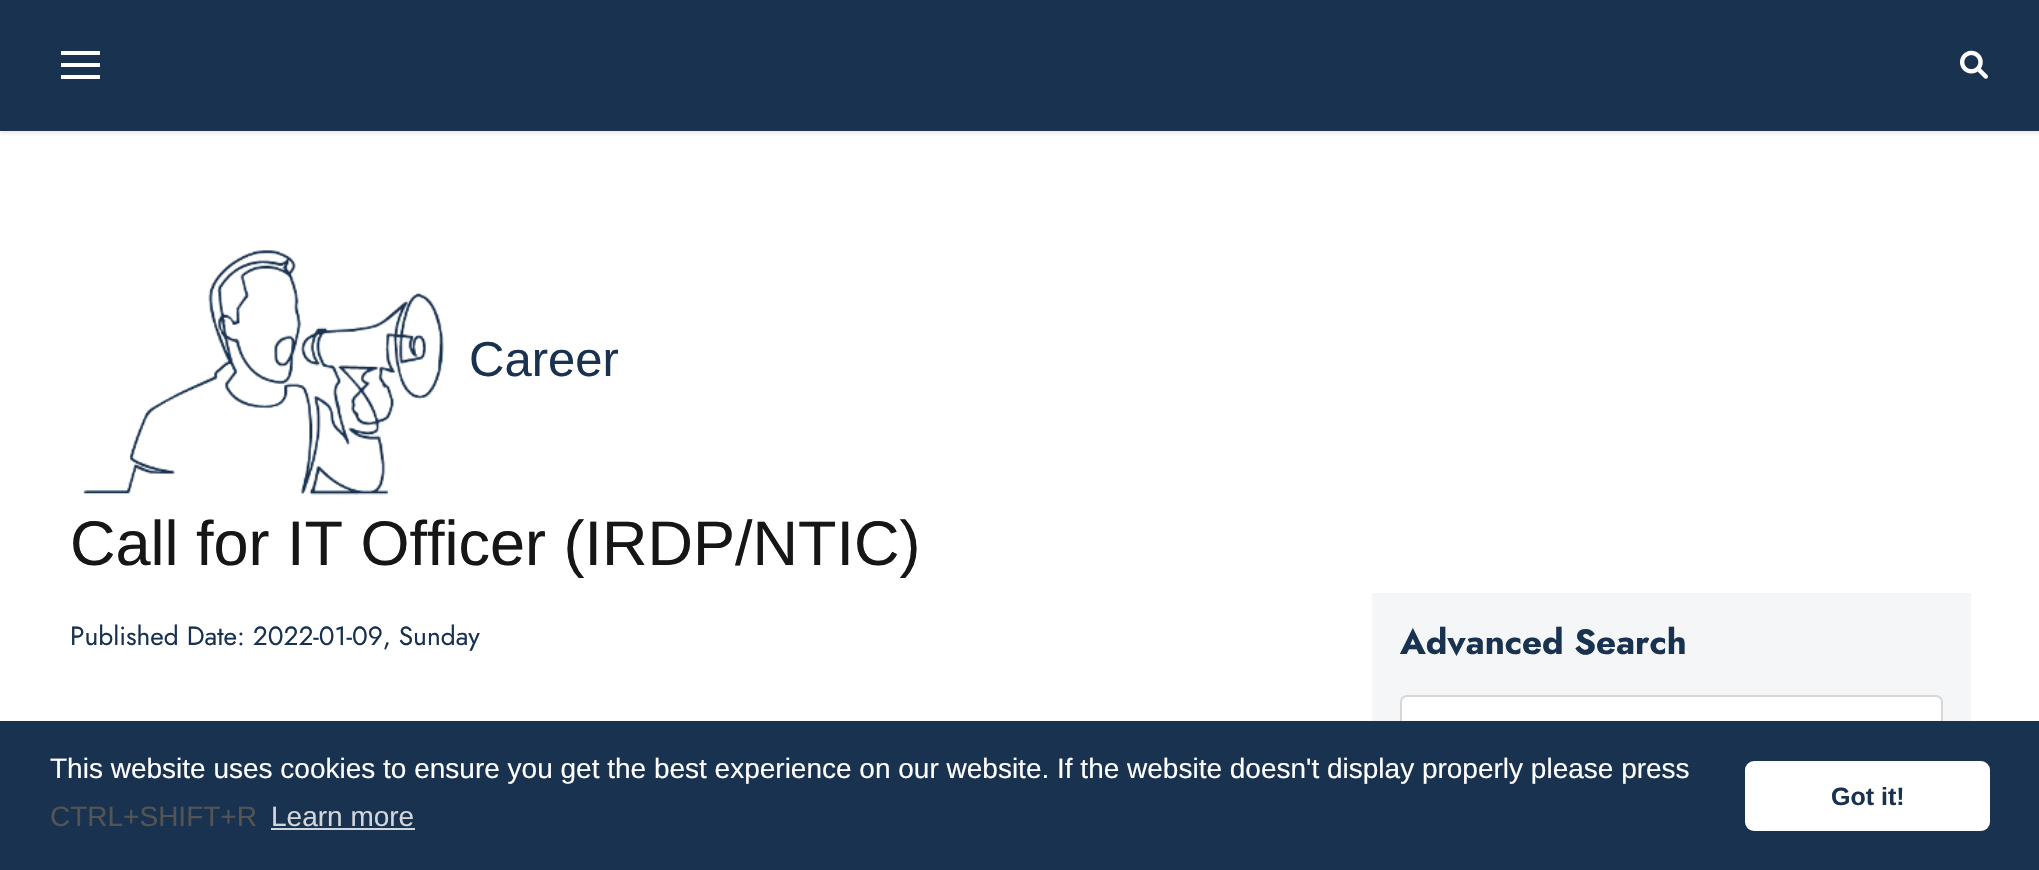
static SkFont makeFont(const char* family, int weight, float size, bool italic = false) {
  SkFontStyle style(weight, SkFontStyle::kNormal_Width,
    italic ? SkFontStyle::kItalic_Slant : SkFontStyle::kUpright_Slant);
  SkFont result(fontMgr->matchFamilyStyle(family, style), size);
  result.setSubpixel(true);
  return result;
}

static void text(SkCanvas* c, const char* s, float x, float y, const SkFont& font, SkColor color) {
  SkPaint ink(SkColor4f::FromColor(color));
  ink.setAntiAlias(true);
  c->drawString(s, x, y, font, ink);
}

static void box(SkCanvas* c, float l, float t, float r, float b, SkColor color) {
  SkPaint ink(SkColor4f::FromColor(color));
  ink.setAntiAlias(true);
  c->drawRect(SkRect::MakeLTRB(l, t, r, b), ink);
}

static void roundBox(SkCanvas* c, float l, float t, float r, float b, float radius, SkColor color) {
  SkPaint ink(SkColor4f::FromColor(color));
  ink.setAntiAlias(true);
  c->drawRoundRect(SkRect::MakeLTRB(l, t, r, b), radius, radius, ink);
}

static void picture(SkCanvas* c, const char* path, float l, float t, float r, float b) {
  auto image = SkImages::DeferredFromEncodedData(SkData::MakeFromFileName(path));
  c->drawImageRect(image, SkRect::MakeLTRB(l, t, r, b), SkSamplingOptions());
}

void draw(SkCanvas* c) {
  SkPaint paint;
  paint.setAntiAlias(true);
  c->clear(0xffffffff);
  paint.setColor(0x1a000000);
  paint.setMaskFilter(SkMaskFilter::MakeBlur(kNormal_SkBlurStyle, 2));
  c->drawRect(SkRect::MakeLTRB(0, 2, 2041, 133), paint);
  paint.setMaskFilter(nullptr);
  box(c, 0, 0, 2039, 131, 0xff193250);
  box(c, 61, 51, 100, 55, 0xffffffff);
  box(c, 61, 63, 100, 67, 0xffffffff);
  box(c, 61, 75, 100, 79, 0xffffffff);
  picture(c, "img_01.png", 1960, 50, 1988, 79);
  picture(c, "img_02.png", 83, 250, 444, 495);
  SkFont face1 = makeFont("Liberation Sans", 400, 49);
  text(c, "Career", 469, 376, face1, 0xff193250);
  SkFont face2 = makeFont("Liberation Sans", 400, 63);
  text(c, "Call for IT Officer (IRDP/NTIC)", 70, 565, face2, 0xff161616);
  SkFont face3 = makeFont("Jost", 400, 26.25f);
  text(c, "Published Date: 2022-01-09, Sunday", 70, 645, face3, 0xff193250);
  box(c, 1372, 593, 1971, 721, 0xfff4f6f7);
  SkFont face4 = makeFont("Jost", 700, 35);
  text(c, "Advanced Search", 1400, 654, face4, 0xff193250);
  paint.setColor(0xffffffff);
  c->drawRoundRect(SkRect::MakeLTRB(1401, 696, 1942, 760), 6, 6, paint);
  paint.setStyle(SkPaint::kStroke_Style);
  paint.setStrokeWidth(2);
  paint.setColor(0xffd7d7d7);
  c->drawRoundRect(SkRect::MakeLTRB(1401, 696, 1942, 760), 6, 6, paint);
  box(c, 0, 721, 2039, 870, 0xff193250);
  SkFont face5 = makeFont("Liberation Sans", 400, 28);
  text(c, "This website uses cookies to ensure you get the best experience on our website. If the website doesn't display properly please press", 50, 778, face5, 0xffffffff);
  text(c, "CTRL+SHIFT+R", 50, 826, face5, 0xff545454);
  text(c, "Learn more", 271, 826, face5, 0xffd1d6dc);
  box(c, 271, 828, 415, 830, 0xffd1d6dc);
  roundBox(c, 1745, 761, 1990, 831, 9, 0xffffffff);
  SkFont face6 = makeFont("Liberation Sans", 700, 25);
  text(c, "Got it!", 1831, 805, face6, 0xff193250);
}
